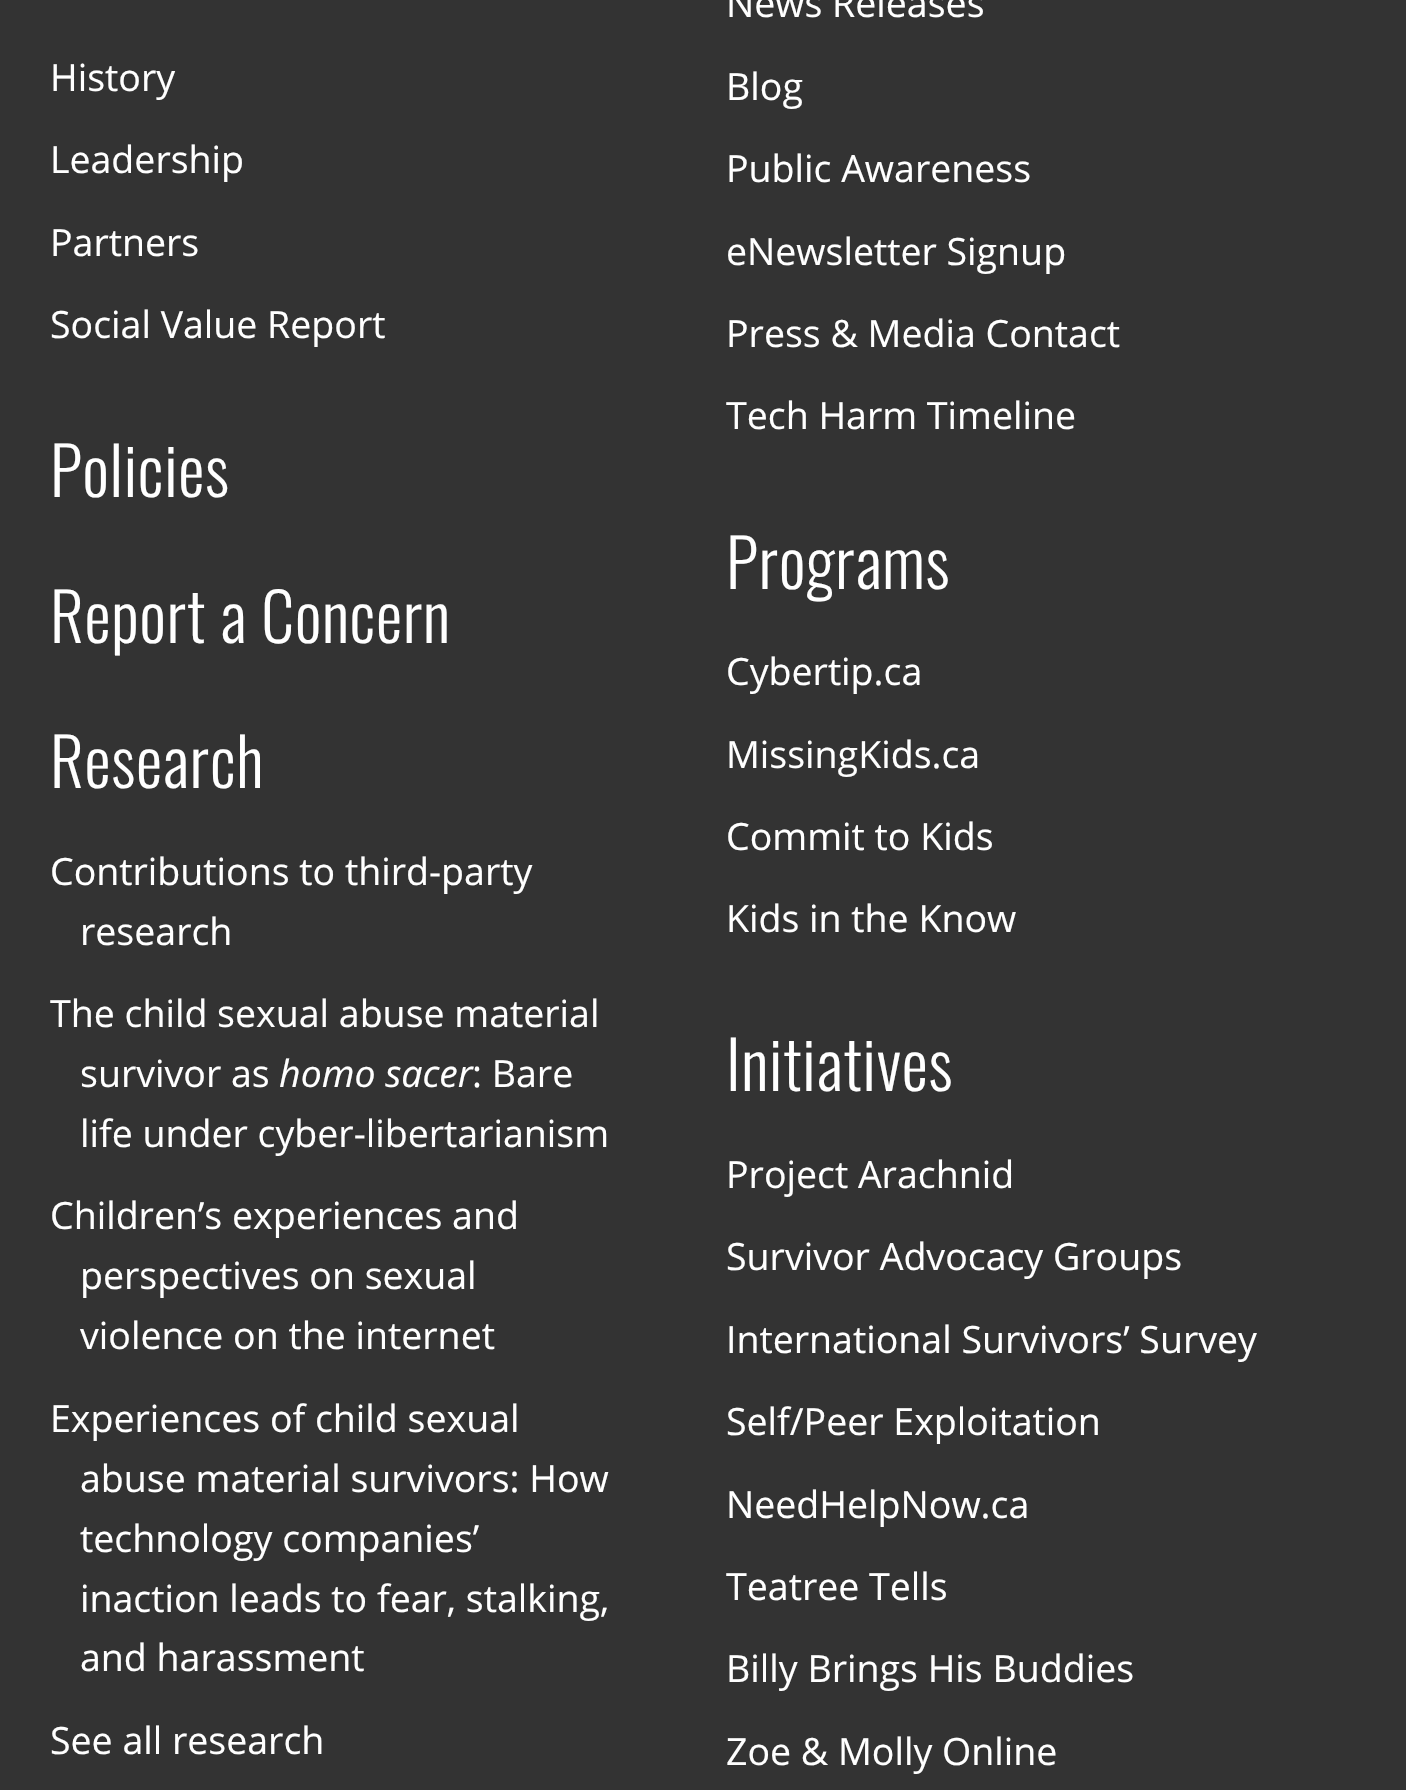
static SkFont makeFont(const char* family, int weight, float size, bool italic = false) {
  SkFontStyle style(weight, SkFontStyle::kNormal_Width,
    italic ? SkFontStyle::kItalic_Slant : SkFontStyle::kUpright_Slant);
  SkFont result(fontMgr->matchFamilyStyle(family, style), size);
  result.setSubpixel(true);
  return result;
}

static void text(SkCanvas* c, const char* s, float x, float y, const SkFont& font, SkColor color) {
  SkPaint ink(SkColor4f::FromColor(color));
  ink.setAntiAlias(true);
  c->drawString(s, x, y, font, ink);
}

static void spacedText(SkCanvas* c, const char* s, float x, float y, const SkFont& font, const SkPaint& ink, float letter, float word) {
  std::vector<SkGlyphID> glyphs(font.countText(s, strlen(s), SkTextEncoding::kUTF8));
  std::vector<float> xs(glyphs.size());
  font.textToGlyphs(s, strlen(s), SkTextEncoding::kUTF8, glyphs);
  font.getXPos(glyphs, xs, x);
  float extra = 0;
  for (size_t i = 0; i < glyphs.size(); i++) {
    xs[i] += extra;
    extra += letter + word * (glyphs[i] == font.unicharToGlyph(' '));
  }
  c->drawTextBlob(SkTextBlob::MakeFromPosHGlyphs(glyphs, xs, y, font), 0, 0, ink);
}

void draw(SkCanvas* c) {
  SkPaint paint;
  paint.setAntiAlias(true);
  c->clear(0xff333333);
  SkFont face1 = makeFont("Open Sans", 400, 37.5f);
  text(c, "History", 50, 91, face1, 0xffffffff);
  text(c, "Leadership", 50, 173, face1, 0xffffffff);
  text(c, "Partners", 50, 256, face1, 0xffffffff);
  text(c, "Social Value Report", 50, 338, face1, 0xffffffff);
  text(c, "News Releases", 726, 17, face1, 0xffffffff);
  text(c, "Blog", 726, 100, face1, 0xffffffff);
  text(c, "Public Awareness", 726, 182, face1, 0xffffffff);
  text(c, "eNewsletter Signup", 726, 265, face1, 0xffffffff);
  text(c, "Press & Media Contact", 726, 347, face1, 0xffffffff);
  text(c, "Tech Harm Timeline", 726, 429, face1, 0xffffffff);
  SkFont face2 = makeFont("Oswald", 300, 66);
  paint.setColor(0xffffffff);
  spacedText(c, "Policies", 50, 497, face2, paint, 0.7f, 0);
  spacedText(c, "Report a Concern", 50, 643, face2, paint, 0.7f, 0);
  spacedText(c, "Programs", 726, 589, face2, paint, 0.7f, 0);
  text(c, "Cybertip.ca", 726, 685, face1, 0xffffffff);
  text(c, "MissingKids.ca", 726, 768, face1, 0xffffffff);
  text(c, "Commit to Kids", 726, 850, face1, 0xffffffff);
  text(c, "Kids in the Know", 726, 932, face1, 0xffffffff);
  spacedText(c, "Research", 50, 788, face2, paint, 0.7f, 0);
  text(c, "Contributions to third-party", 50, 885, face1, 0xffffffff);
  text(c, "research", 80, 945, face1, 0xffffffff);
  text(c, "The child sexual abuse material", 50, 1027, face1, 0xffffffff);
  text(c, "survivor as", 80, 1087, face1, 0xffffffff);
  SkFont face3 = makeFont("Open Sans", 400, 37.5f, true);
  text(c, "homo sacer", 279, 1087, face3, 0xffffffff);
  text(c, ": Bare", 472, 1087, face1, 0xffffffff);
  text(c, "life under cyber-libertarianism", 80, 1147, face1, 0xffffffff);
  text(c, "Children’s experiences and", 50, 1229, face1, 0xffffffff);
  text(c, "perspectives on sexual", 80, 1289, face1, 0xffffffff);
  text(c, "violence on the internet", 80, 1349, face1, 0xffffffff);
  text(c, "Experiences of child sexual", 50, 1432, face1, 0xffffffff);
  text(c, "abuse material survivors: How", 80, 1492, face1, 0xffffffff);
  text(c, "technology companies’", 80, 1552, face1, 0xffffffff);
  text(c, "inaction leads to fear, stalking,", 80, 1612, face1, 0xffffffff);
  text(c, "and harassment", 80, 1671, face1, 0xffffffff);
  text(c, "See all research", 50, 1754, face1, 0xffffffff);
  spacedText(c, "Initiatives", 726, 1091, face2, paint, 0.7f, 0);
  text(c, "Project Arachnid", 726, 1188, face1, 0xffffffff);
  text(c, "Survivor Advocacy Groups", 726, 1270, face1, 0xffffffff);
  text(c, "International Survivors’ Survey", 726, 1353, face1, 0xffffffff);
  text(c, "Self/Peer Exploitation", 726, 1435, face1, 0xffffffff);
  text(c, "NeedHelpNow.ca", 726, 1518, face1, 0xffffffff);
  text(c, "Teatree Tells", 726, 1600, face1, 0xffffffff);
  text(c, "Billy Brings His Buddies", 726, 1682, face1, 0xffffffff);
  text(c, "Zoe & Molly Online", 726, 1765, face1, 0xffffffff);
}
